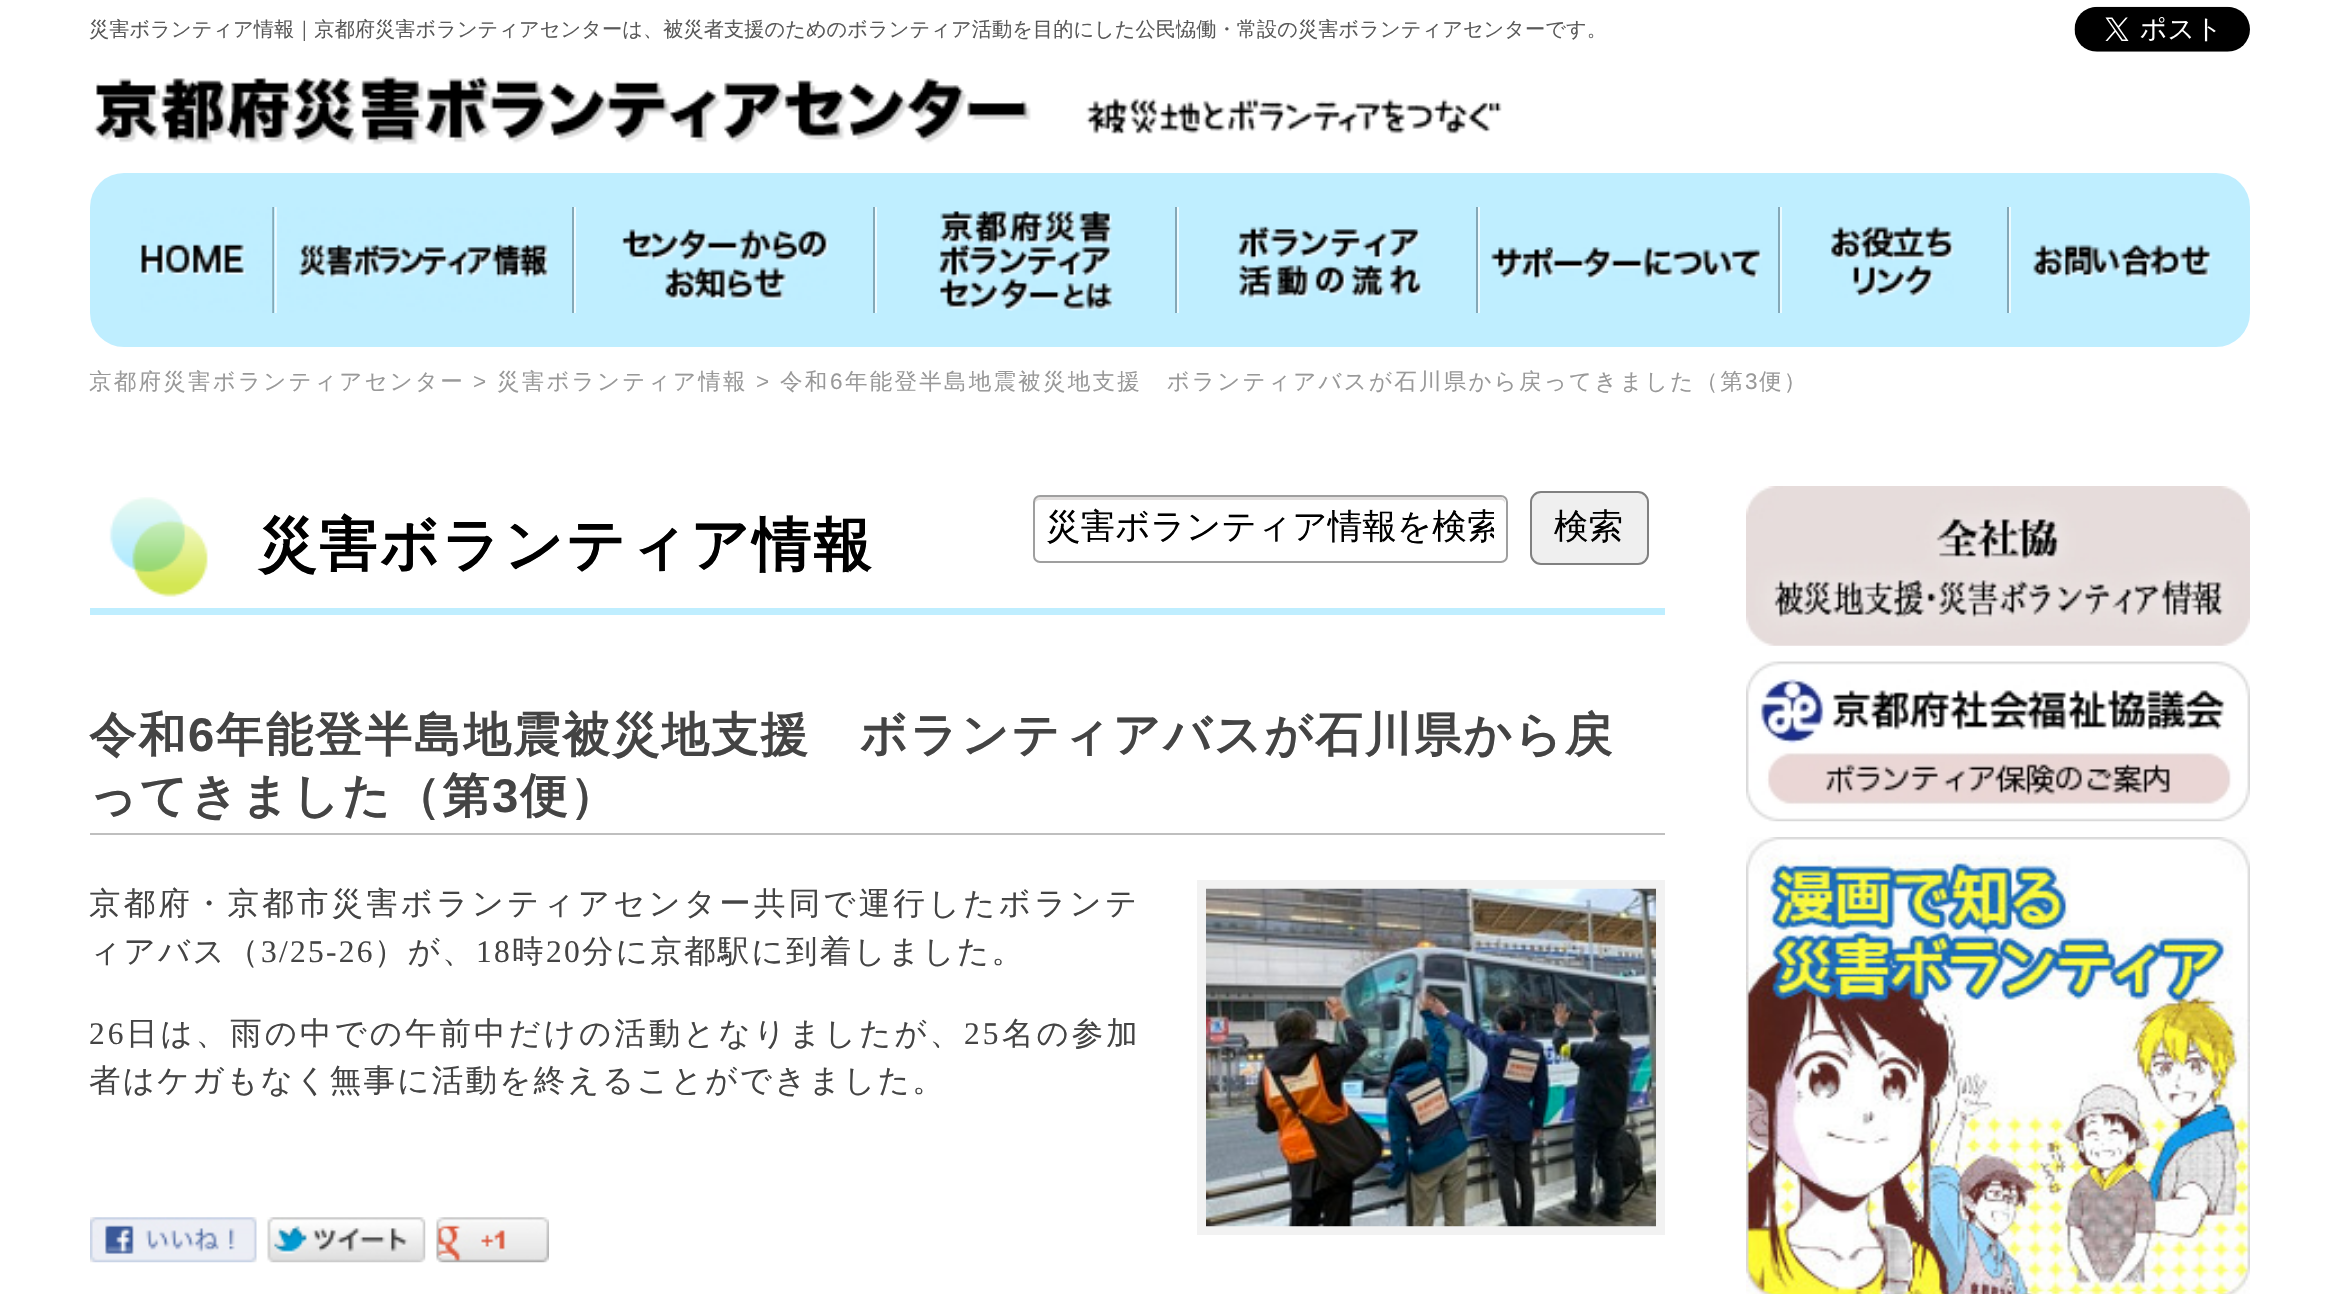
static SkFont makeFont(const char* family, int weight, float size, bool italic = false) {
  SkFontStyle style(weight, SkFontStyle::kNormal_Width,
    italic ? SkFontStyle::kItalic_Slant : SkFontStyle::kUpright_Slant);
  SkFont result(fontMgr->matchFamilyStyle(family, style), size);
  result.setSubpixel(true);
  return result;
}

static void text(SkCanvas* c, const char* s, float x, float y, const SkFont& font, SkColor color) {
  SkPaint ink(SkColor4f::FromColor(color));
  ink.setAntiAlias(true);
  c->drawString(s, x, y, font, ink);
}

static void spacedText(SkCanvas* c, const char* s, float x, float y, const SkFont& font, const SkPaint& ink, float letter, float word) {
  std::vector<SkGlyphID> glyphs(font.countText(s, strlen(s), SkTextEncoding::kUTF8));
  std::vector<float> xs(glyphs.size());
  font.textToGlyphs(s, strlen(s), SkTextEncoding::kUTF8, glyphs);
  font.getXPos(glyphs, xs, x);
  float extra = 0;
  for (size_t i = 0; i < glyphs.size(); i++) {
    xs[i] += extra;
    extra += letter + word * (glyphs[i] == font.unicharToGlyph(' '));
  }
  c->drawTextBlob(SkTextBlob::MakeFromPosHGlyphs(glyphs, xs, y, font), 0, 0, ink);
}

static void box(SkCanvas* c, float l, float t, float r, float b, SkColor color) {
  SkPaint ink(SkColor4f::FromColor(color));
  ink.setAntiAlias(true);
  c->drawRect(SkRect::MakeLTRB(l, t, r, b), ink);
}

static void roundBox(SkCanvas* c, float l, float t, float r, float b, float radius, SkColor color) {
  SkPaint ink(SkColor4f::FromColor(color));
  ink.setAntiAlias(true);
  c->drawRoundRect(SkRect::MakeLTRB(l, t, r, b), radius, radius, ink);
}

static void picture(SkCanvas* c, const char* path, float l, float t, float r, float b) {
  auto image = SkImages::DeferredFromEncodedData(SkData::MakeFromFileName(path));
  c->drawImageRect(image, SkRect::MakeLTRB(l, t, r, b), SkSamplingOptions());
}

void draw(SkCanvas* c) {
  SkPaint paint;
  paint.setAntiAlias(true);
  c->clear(0xffffffff);
  SkFont face1 = makeFont("WenQuanYi Zen Hei", 500, 20.25f);
  text(c, "災害ボランティア情報｜京都府災害ボランティアセンターは、被災者支援のためのボランティア活動を目的にした公民恊働・常設の災害ボランティアセンターです。", 89, 36, face1, 0xff595959);
  picture(c, "img_01.png", 2074, 6, 2250, 52);
  picture(c, "img_02.png", 94, 76, 1502, 145);
  roundBox(c, 90, 173, 2250, 347, 34, 0xffbfeeff);
  box(c, 272, 207, 274, 313, 0xff84a8b7);
  picture(c, "img_03.png", 141, 207, 273, 313);
  box(c, 572, 207, 574, 313, 0xff84a8b7);
  box(c, 275, 207, 277, 313, 0xffecfaff);
  picture(c, "img_04.png", 276, 207, 550, 313);
  box(c, 873, 207, 875, 313, 0xff84a8b7);
  box(c, 574, 207, 576, 313, 0xffecfaff);
  picture(c, "img_05.png", 622, 229, 829, 300);
  box(c, 1175, 207, 1177, 313, 0xff84a8b7);
  box(c, 875, 207, 877, 313, 0xffecfaff);
  picture(c, "img_06.png", 937, 211, 1114, 311);
  box(c, 1476, 207, 1478, 313, 0xff84a8b7);
  box(c, 1177, 207, 1179, 313, 0xffecfaff);
  picture(c, "img_07.png", 1237, 226, 1423, 300);
  box(c, 1778, 207, 1780, 313, 0xff84a8b7);
  box(c, 1478, 207, 1480, 313, 0xffecfaff);
  picture(c, "img_08.png", 1491, 247, 1763, 281);
  box(c, 2007, 207, 2009, 313, 0xff84a8b7);
  box(c, 1780, 207, 1782, 313, 0xffecfaff);
  picture(c, "img_09.png", 1831, 226, 1954, 298);
  box(c, 2009, 207, 2011, 313, 0xffecfaff);
  picture(c, "img_10.png", 2033, 244, 2213, 280);
  SkFont face2 = makeFont("WenQuanYi Zen Hei", 500, 22.5f);
  paint.setColor(0xff999999);
  spacedText(c, "京都府災害ボランティアセンター", 89, 389, face2, paint, 2.25f, 0);
  SkFont face3 = makeFont("Liberation Sans", 400, 22.5f);
  spacedText(c, ">", 473, 389, face3, paint, 2.25f, 0);
  spacedText(c, "災害ボランティア情報", 497, 389, face2, paint, 2.25f, 0);
  spacedText(c, ">", 756, 389, face3, paint, 2.25f, 0);
  spacedText(c, "令和", 780, 389, face2, paint, 2.25f, 0);
  spacedText(c, "6", 830, 389, face3, paint, 2.25f, 0);
  spacedText(c, "年能登半島地震被災地支援　ボランティアバスが石川県から戻ってきました（第", 845, 389, face2, paint, 2.25f, 0);
  spacedText(c, "3", 1745, 389, face3, paint, 2.25f, 0);
  spacedText(c, "便）", 1759, 389, face2, paint, 2.25f, 0);
  picture(c, "img_11.png", 109, 497, 208, 597);
  box(c, 90, 608, 1665, 615, 0xffbfeeff);
  SkFont face4 = makeFont("WenQuanYi Zen Hei", 700, 58.5f);
  paint.setColor(0xff000000);
  spacedText(c, "災害ボランティア情報", 258, 565, face4, paint, 2.25f, 0);
  paint.setColor(0xffe2dfde);
  c->drawPath(SkPathBuilder().moveTo(1040, 500).lineTo(1501, 500).cubicTo(1503, 500, 1505, 502, 1505, 504).lineTo(1505, 502).cubicTo(1505, 499, 1503, 497, 1500, 497).lineTo(1040, 497).cubicTo(1037, 497, 1035, 499, 1035, 502).lineTo(1035, 504).cubicTo(1035, 502, 1037, 500, 1040, 500).close().detach(), paint);
  paint.setStyle(SkPaint::kStroke_Style);
  paint.setStrokeWidth(2);
  paint.setColor(0xff9f9f9f);
  c->drawRoundRect(SkRect::MakeLTRB(1034, 496, 1507, 562), 6, 6, paint);
  c->save();
  c->clipRect(SkRect::MakeLTRB(1046, 504, 1494, 551));
  SkFont face5 = makeFont("WenQuanYi Zen Hei", 500, 34.6f);
  text(c, "災害ボランティア情報を検索", 1046, 538, face5, 0xff000000);
  c->restore();
  paint.setStyle(SkPaint::kFill_Style);
  paint.setColor(0xffefefef);
  c->drawRoundRect(SkRect::MakeLTRB(1531, 492, 1648, 564), 10, 10, paint);
  paint.setStyle(SkPaint::kStroke_Style);
  paint.setColor(0xff808080);
  c->drawRoundRect(SkRect::MakeLTRB(1531, 492, 1648, 564), 10, 10, paint);
  text(c, "検索", 1554, 538, face5, 0xff000000);
  box(c, 90, 833, 1665, 835, 0xffbfbfbf);
  SkFont face6 = makeFont("WenQuanYi Zen Hei", 700, 47.25f);
  paint.setStyle(SkPaint::kFill_Style);
  paint.setColor(0xff444444);
  spacedText(c, "令和", 89, 751, face6, paint, 2.25f, 0);
  SkFont face7 = makeFont("Liberation Sans", 700, 47.25f);
  spacedText(c, "6", 188, 751, face7, paint, 2.25f, 0);
  spacedText(c, "年能登半島地震被災地支援　ボランティアバスが石川県から戻", 216, 751, face6, paint, 2.25f, 0);
  spacedText(c, "ってきました（第", 89, 812, face6, paint, 2.25f, 0);
  spacedText(c, "3", 492, 812, face7, paint, 2.25f, 0);
  spacedText(c, "便）", 520, 812, face6, paint, 2.25f, 0);
  SkFont face8 = makeFont("WenQuanYi Zen Hei", 500, 31.5f);
  spacedText(c, "京都府・京都市災害ボランティアセンター共同で運行したボランテ", 89, 914, face8, paint, 3.15f, 0);
  spacedText(c, "ィアバス（", 89, 962, face8, paint, 2.25f, 0);
  SkFont face9 = makeFont("Liberation Serif", 400, 31.5f);
  spacedText(c, "3/25-26", 261, 962, face9, paint, 2.25f, 0);
  spacedText(c, "）が、", 374, 962, face8, paint, 2.25f, 0);
  spacedText(c, "18", 476, 962, face9, paint, 2.25f, 0);
  spacedText(c, "時", 512, 962, face8, paint, 2.25f, 0);
  spacedText(c, "20", 546, 962, face9, paint, 2.25f, 0);
  spacedText(c, "分に京都駅に到着しました。", 582, 962, face8, paint, 2.25f, 0);
  spacedText(c, "26", 89, 1044, face9, paint, 3, 0);
  spacedText(c, "日は、雨の中での午前中だけの活動となりましたが、", 126, 1044, face8, paint, 3, 0);
  spacedText(c, "25", 964, 1044, face9, paint, 3, 0);
  spacedText(c, "名の参加", 1002, 1044, face8, paint, 3, 0);
  spacedText(c, "者はケガもなく無事に活動を終えることができました。", 89, 1091, face8, paint, 2.25f, 0);
  picture(c, "img_12.png", 90, 1217, 257, 1263);
  picture(c, "img_13.png", 266, 1217, 426, 1263);
  picture(c, "img_14.png", 436, 1217, 549, 1263);
  paint.setStyle(SkPaint::kStroke_Style);
  paint.setStrokeWidth(9);
  paint.setColor(0xfff2f2f2);
  c->drawRect(SkRect::MakeLTRB(1201.5f, 884.5f, 1660.5f, 1230.5f), paint);
  picture(c, "img_15.png", 1206, 888, 1656, 1227);
  picture(c, "img_16.png", 1746, 486, 2250, 646);
  picture(c, "img_17.png", 1746, 661, 2250, 822);
  picture(c, "img_18.png", 1746, 837, 2250, 1294);
}
